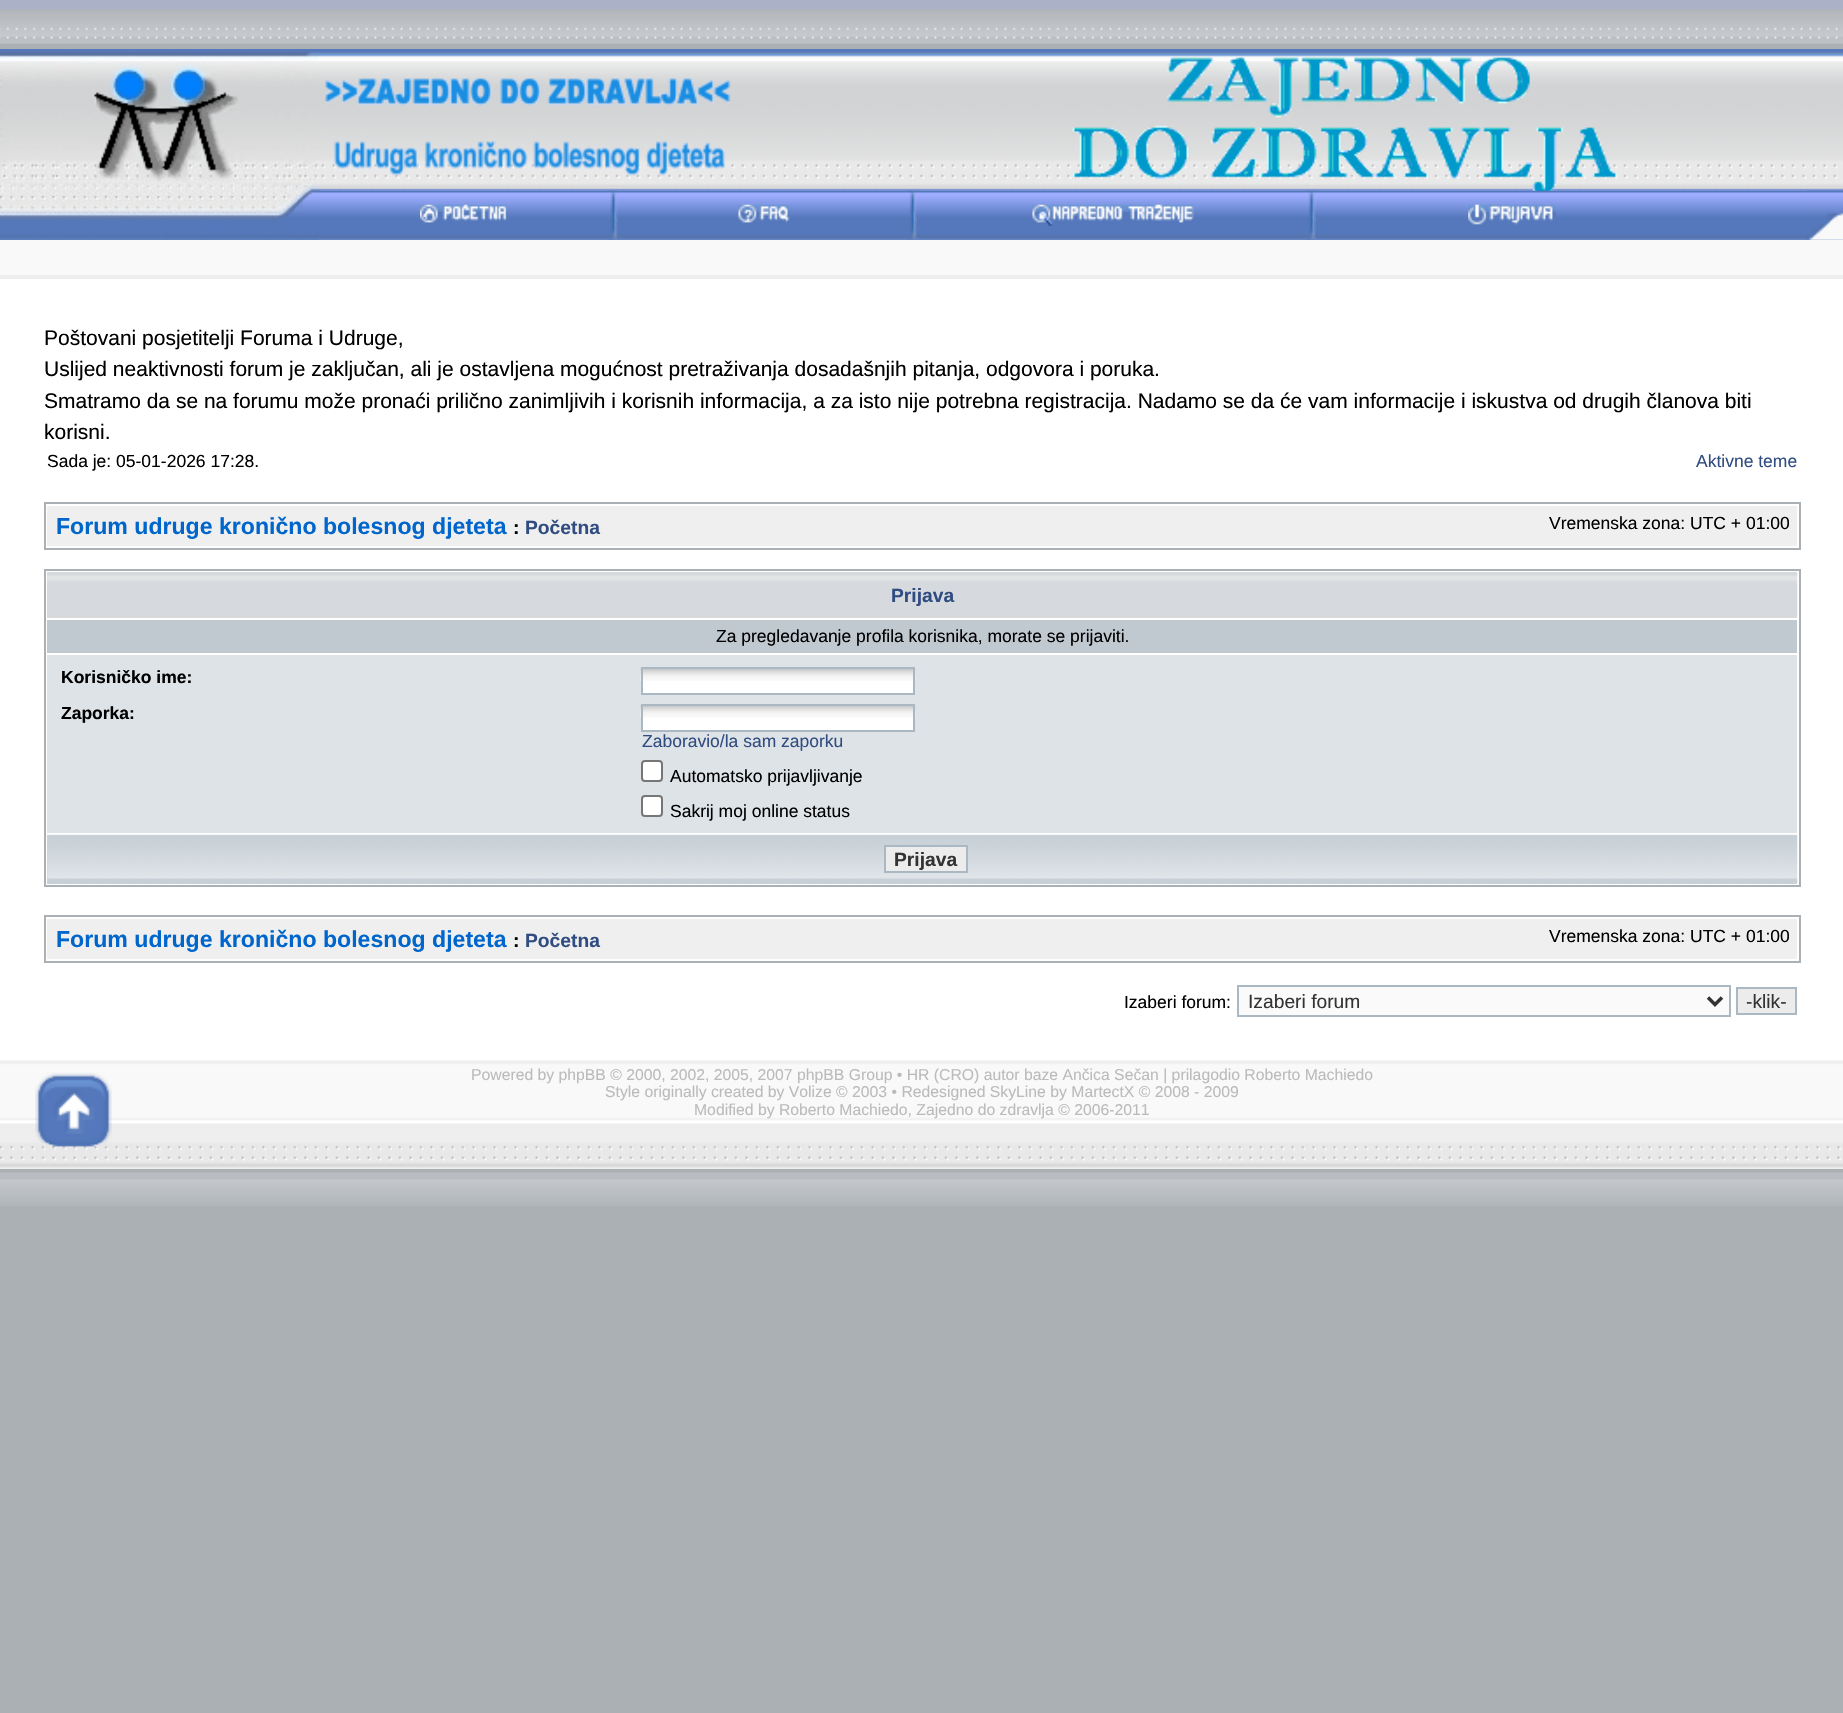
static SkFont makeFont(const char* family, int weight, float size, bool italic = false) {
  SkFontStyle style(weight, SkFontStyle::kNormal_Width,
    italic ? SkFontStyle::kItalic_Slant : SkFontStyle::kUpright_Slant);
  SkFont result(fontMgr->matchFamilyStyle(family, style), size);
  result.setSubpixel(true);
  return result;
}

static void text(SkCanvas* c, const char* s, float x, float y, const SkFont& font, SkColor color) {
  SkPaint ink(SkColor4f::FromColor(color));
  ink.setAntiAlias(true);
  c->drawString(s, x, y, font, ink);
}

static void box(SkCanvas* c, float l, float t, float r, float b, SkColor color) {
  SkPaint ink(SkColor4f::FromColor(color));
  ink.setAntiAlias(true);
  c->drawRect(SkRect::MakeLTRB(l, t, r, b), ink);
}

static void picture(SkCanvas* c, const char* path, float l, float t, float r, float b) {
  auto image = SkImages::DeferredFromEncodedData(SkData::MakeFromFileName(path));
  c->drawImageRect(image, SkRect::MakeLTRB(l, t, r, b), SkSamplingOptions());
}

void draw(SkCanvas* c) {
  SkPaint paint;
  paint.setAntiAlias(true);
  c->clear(0xffabb0b5);
  box(c, 0, 239, 1843, 1061, 0xffffffff);
  picture(c, "img_01.png", 0, 9, 1843, 49);
  box(c, 0, 0, 1843, 9, 0xffabb1c6);
  picture(c, "img_02.png", 0, 49, 1843, 240);
  picture(c, "img_05.png", 1072, 57, 1618, 191);
  picture(c, "img_06.png", 0, 190, 1843, 240);
  picture(c, "img_03.png", 0, 50, 319, 240);
  picture(c, "img_04.png", 325, 78, 731, 176);
  picture(c, "img_07.png", 420, 204, 508, 223);
  picture(c, "img_08.png", 609, 190, 618, 240);
  picture(c, "img_09.png", 738, 204, 790, 223);
  picture(c, "img_10.png", 908, 190, 917, 240);
  picture(c, "img_11.png", 1032, 204, 1194, 226);
  picture(c, "img_10.png", 1307, 190, 1316, 240);
  picture(c, "img_12.png", 1468, 204, 1556, 225);
  picture(c, "img_13.png", 1806, 190, 1843, 240);
  box(c, 0, 240, 1843, 275, 0xfff9f9f9);
  box(c, 0, 275, 1843, 279, 0xffeeeeee);
  SkFont face1 = makeFont("Liberation Sans", 400, 21);
  text(c, "Poštovani posjetitelji Foruma i Udruge,", 44, 345, face1, 0xff000000);
  text(c, "Uslijed neaktivnosti forum je zaključan, ali je ostavljena mogućnost pretraživanja dosadašnjih pitanja, odgovora i poruka.", 44, 376, face1, 0xff000000);
  text(c, "Smatramo da se na forumu može pronaći prilično zanimljivih i korisnih informacija, a za isto nije potrebna registracija. Nadamo se da će vam informacije i iskustva od drugih članova biti", 44, 408, face1, 0xff000000);
  text(c, "korisni.", 44, 439, face1, 0xff000000);
  SkFont face2 = makeFont("Liberation Sans", 400, 17.5f);
  text(c, "Sada je: 05-01-2026 17:28.", 47, 467, face2, 0xff000000);
  text(c, "Aktivne teme", 1696, 467, face2, 0xff304c80);
  paint.setStyle(SkPaint::kStroke_Style);
  paint.setStrokeWidth(2);
  paint.setColor(0xffabb0b5);
  c->drawRect(SkRect::MakeLTRB(45, 503, 1800, 549), paint);
  box(c, 47, 506, 1797, 546, 0xffefefef);
  SkFont face3 = makeFont("Liberation Sans", 700, 23.1f);
  text(c, "Forum udruge kronično bolesnog djeteta", 56, 534, face3, 0xff0066cc);
  SkFont face4 = makeFont("Liberation Sans", 700, 19.25f);
  text(c, ":", 513, 534, face4, 0xff000000);
  text(c, "Početna", 525, 534, face4, 0xff304c80);
  text(c, "Vremenska zona: UTC + 01:00", 1549, 529, face2, 0xff000000);
  c->drawRect(SkRect::MakeLTRB(45, 570, 1800, 886), paint);
  box(c, 47, 572, 1797, 618, 0xffd6d9de);
  picture(c, "img_14.png", 47, 572, 1798, 618);
  text(c, "Prijava", 891, 602, face4, 0xff304c80);
  box(c, 47, 620, 1797, 653, 0xffc0c8d0);
  text(c, "Za pregledavanje profila korisnika, morate se prijaviti.", 716, 642, face2, 0xff000000);
  box(c, 47, 655, 1797, 833, 0xffdee3e7);
  SkFont face5 = makeFont("Liberation Sans", 700, 17.5f);
  text(c, "Korisničko ime:", 61, 683, face5, 0xff000000);
  box(c, 643, 680, 913, 693, 0xffffffff);
  picture(c, "img_15.png", 640, 668, 916, 681);
  paint.setColor(0xffa9b8c2);
  c->drawRect(SkRect::MakeLTRB(642, 668, 914, 694), paint);
  text(c, "Zaporka:", 61, 719, face5, 0xff000000);
  box(c, 643, 717, 913, 730, 0xffffffff);
  picture(c, "img_16.png", 640, 705, 916, 718);
  c->drawRect(SkRect::MakeLTRB(642, 705, 914, 731), paint);
  text(c, "Zaboravio/la sam zaporku", 642, 747, face2, 0xff304c80);
  paint.setStyle(SkPaint::kFill_Style);
  paint.setColor(0xffffffff);
  c->drawRoundRect(SkRect::MakeLTRB(642, 761, 662, 781), 3, 3, paint);
  paint.setStyle(SkPaint::kStroke_Style);
  paint.setColor(0xff767676);
  c->drawRoundRect(SkRect::MakeLTRB(642, 761, 662, 781), 3, 3, paint);
  text(c, "Automatsko prijavljivanje", 670, 782, face2, 0xff000000);
  paint.setStyle(SkPaint::kFill_Style);
  paint.setColor(0xffffffff);
  c->drawRoundRect(SkRect::MakeLTRB(642, 796, 662, 816), 3, 3, paint);
  paint.setStyle(SkPaint::kStroke_Style);
  paint.setColor(0xff767676);
  c->drawRoundRect(SkRect::MakeLTRB(642, 796, 662, 816), 3, 3, paint);
  text(c, "Sakrij moj online status", 670, 817, face2, 0xff000000);
  box(c, 47, 835, 1797, 884, 0xffc7d0d7);
  picture(c, "img_17.png", 47, 834, 1798, 884);
  paint.setStyle(SkPaint::kFill_Style);
  paint.setColor(0xffececec);
  c->drawRect(SkRect::MakeLTRB(885, 846, 967, 872), paint);
  paint.setStyle(SkPaint::kStroke_Style);
  paint.setColor(0xffa9b8c2);
  c->drawRect(SkRect::MakeLTRB(885, 846, 967, 872), paint);
  text(c, "Prijava", 894, 866, face4, 0xff333333);
  paint.setColor(0xffabb0b5);
  c->drawRect(SkRect::MakeLTRB(45, 916, 1800, 962), paint);
  box(c, 47, 919, 1797, 959, 0xffefefef);
  text(c, "Forum udruge kronično bolesnog djeteta", 56, 947, face3, 0xff0066cc);
  text(c, ":", 513, 947, face4, 0xff000000);
  text(c, "Početna", 525, 947, face4, 0xff304c80);
  text(c, "Vremenska zona: UTC + 01:00", 1549, 942, face2, 0xff000000);
  text(c, "Izaberi forum:", 1124, 1008, face2, 0xff000000);
  paint.setStyle(SkPaint::kFill_Style);
  paint.setColor(0xfffafafa);
  c->drawRect(SkRect::MakeLTRB(1238, 986, 1730, 1016), paint);
  paint.setStyle(SkPaint::kStroke_Style);
  paint.setColor(0xffa9b8c2);
  c->drawRect(SkRect::MakeLTRB(1238, 986, 1730, 1016), paint);
  paint.setStrokeWidth(3.5f);
  paint.setColor(0xff333333);
  c->drawPath(SkPathBuilder().moveTo(1708, 997.5f).lineTo(1715, 1004.5f).lineTo(1722, 997.5f).detach(), paint);
  SkFont face6 = makeFont("Liberation Sans", 400, 19.25f);
  text(c, "Izaberi forum", 1248, 1008, face6, 0xff333333);
  paint.setStyle(SkPaint::kFill_Style);
  paint.setColor(0xffececec);
  c->drawRect(SkRect::MakeLTRB(1737, 988, 1796, 1014), paint);
  paint.setStyle(SkPaint::kStroke_Style);
  paint.setStrokeWidth(2);
  paint.setColor(0xffa9b8c2);
  c->drawRect(SkRect::MakeLTRB(1737, 988, 1796, 1014), paint);
  text(c, "-klik-", 1746, 1008, face6, 0xff333333);
  picture(c, "img_18.png", 0, 1060, 1843, 1169);
  picture(c, "img_19.png", 35, 1072, 112, 1160);
  SkFont face7 = makeFont("Liberation Sans", 400, 15.75f);
  text(c, "Powered by phpBB © 2000, 2002, 2005, 2007 phpBB Group • HR (CRO) autor baze Ančica Sečan | prilagodio Roberto Machiedo", 471, 1080, face7, 0xffbbbbbb);
  text(c, "Style originally created by Volize © 2003 • Redesigned SkyLine by MartectX © 2008 - 2009", 605, 1097, face7, 0xffbbbbbb);
  text(c, "Modified by Roberto Machiedo, Zajedno do zdravlja © 2006-2011", 694, 1115, face7, 0xffbbbbbb);
  picture(c, "img_20.png", 0, 1172, 1843, 1206);
}
